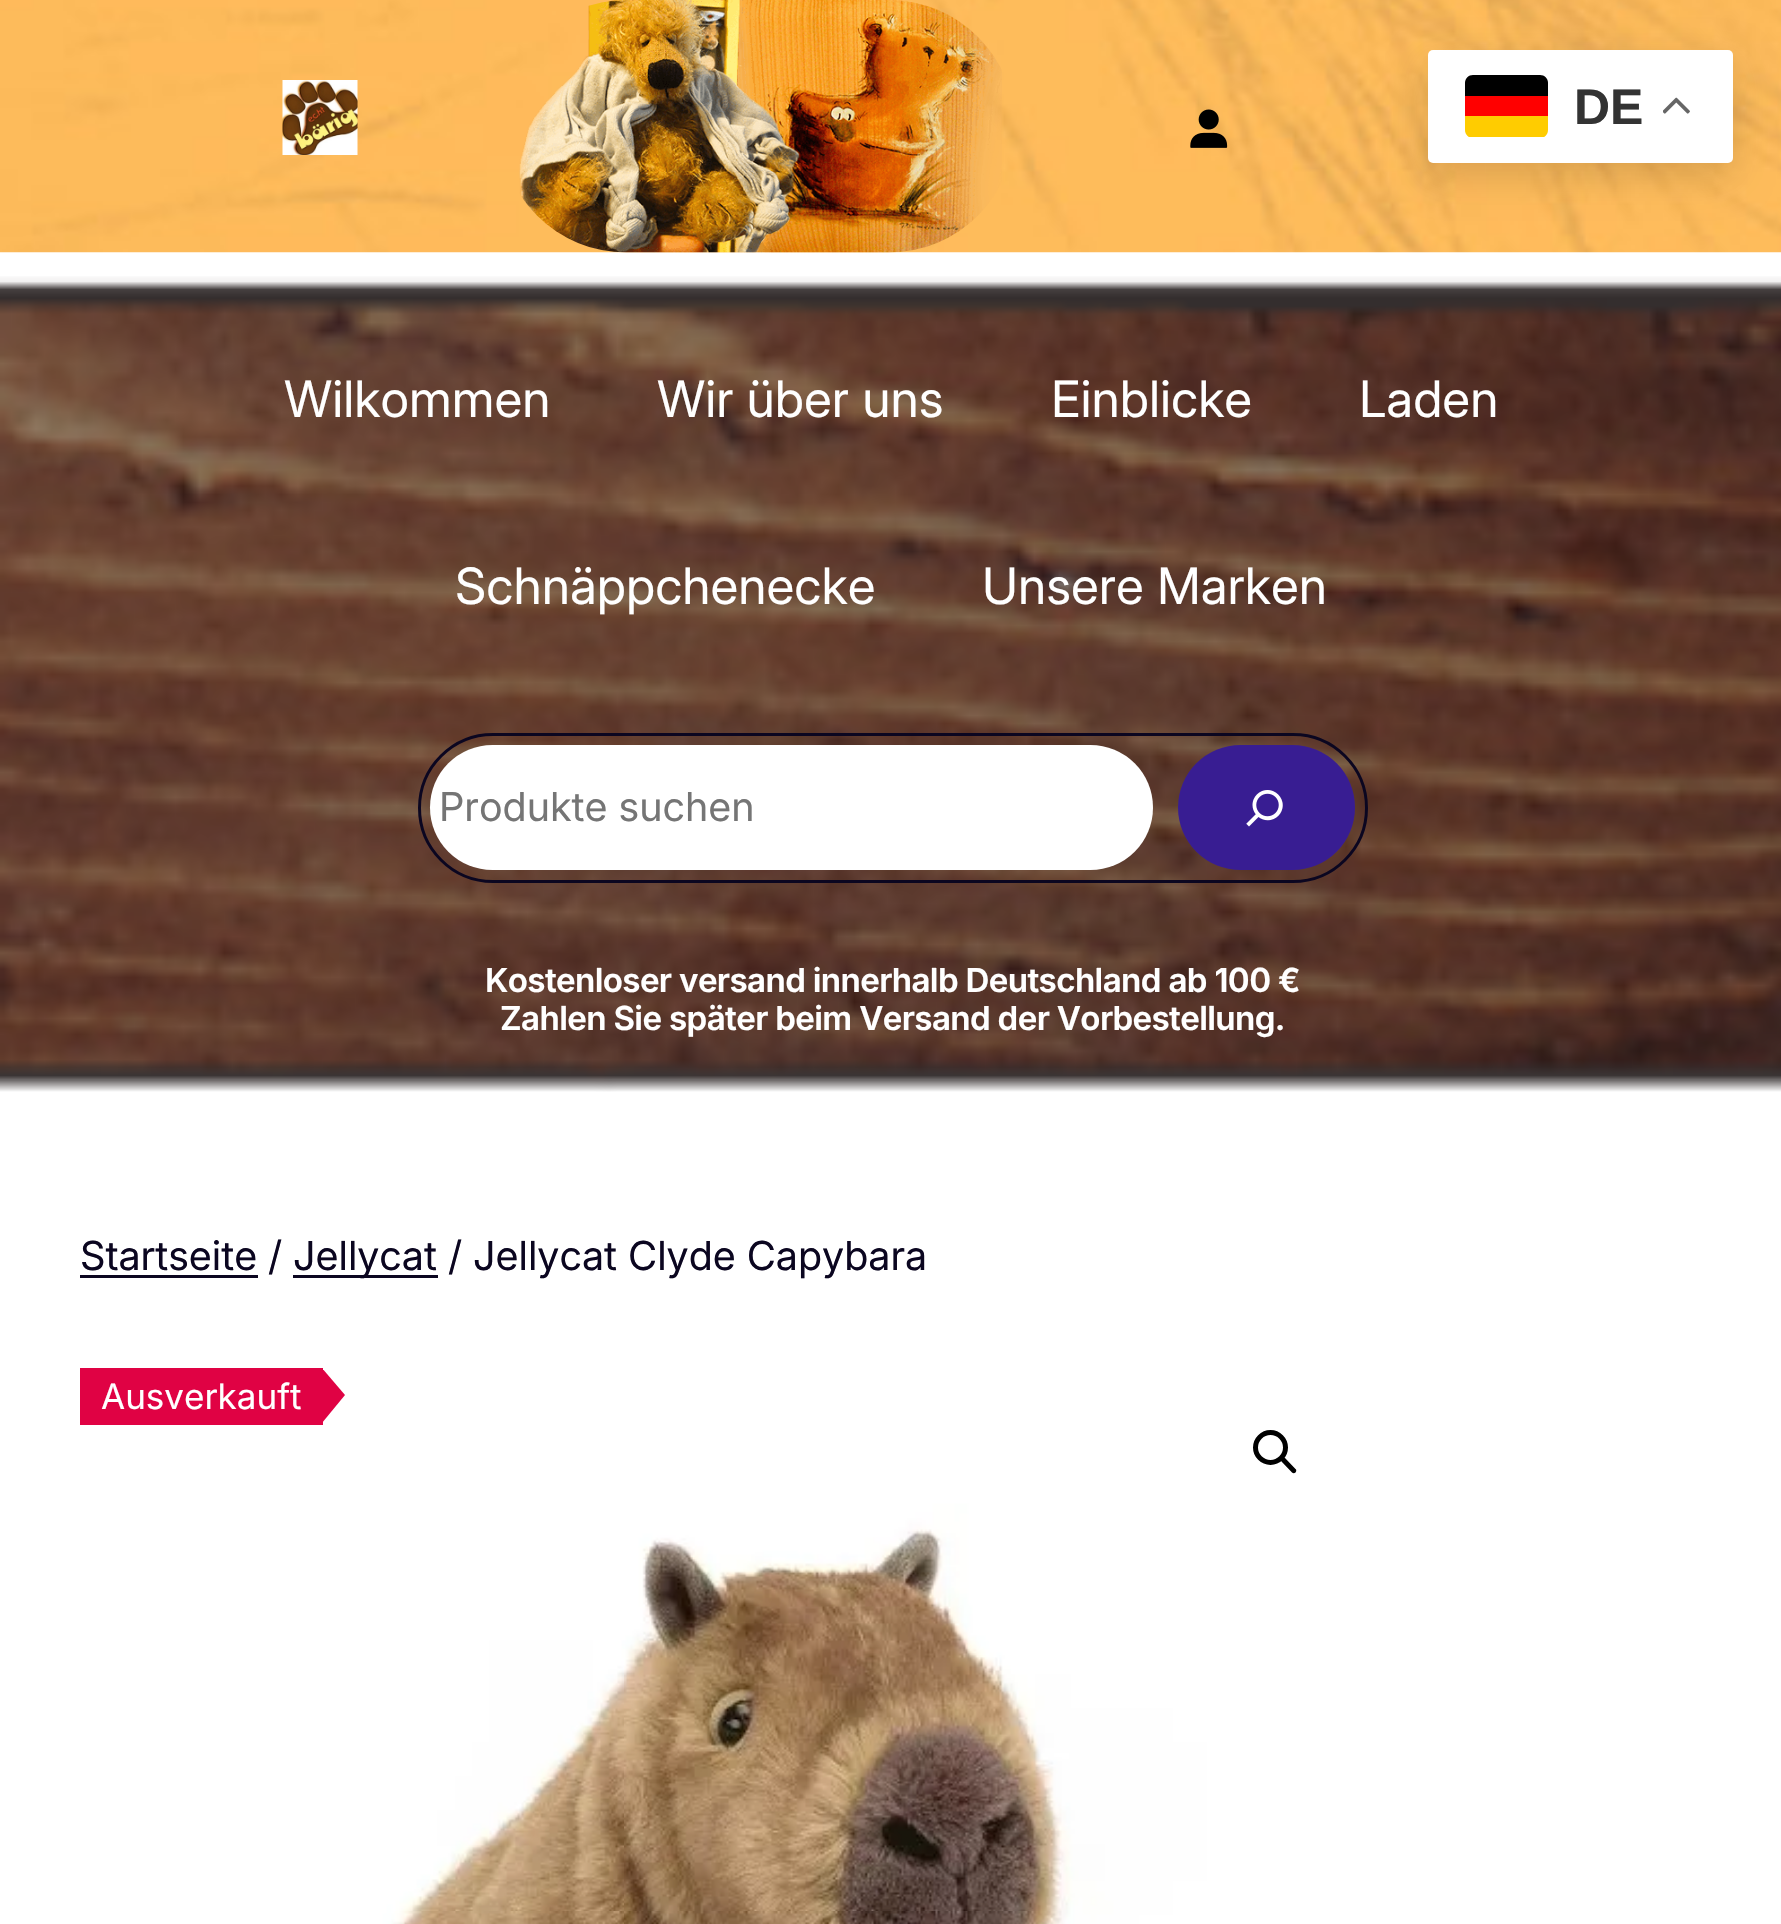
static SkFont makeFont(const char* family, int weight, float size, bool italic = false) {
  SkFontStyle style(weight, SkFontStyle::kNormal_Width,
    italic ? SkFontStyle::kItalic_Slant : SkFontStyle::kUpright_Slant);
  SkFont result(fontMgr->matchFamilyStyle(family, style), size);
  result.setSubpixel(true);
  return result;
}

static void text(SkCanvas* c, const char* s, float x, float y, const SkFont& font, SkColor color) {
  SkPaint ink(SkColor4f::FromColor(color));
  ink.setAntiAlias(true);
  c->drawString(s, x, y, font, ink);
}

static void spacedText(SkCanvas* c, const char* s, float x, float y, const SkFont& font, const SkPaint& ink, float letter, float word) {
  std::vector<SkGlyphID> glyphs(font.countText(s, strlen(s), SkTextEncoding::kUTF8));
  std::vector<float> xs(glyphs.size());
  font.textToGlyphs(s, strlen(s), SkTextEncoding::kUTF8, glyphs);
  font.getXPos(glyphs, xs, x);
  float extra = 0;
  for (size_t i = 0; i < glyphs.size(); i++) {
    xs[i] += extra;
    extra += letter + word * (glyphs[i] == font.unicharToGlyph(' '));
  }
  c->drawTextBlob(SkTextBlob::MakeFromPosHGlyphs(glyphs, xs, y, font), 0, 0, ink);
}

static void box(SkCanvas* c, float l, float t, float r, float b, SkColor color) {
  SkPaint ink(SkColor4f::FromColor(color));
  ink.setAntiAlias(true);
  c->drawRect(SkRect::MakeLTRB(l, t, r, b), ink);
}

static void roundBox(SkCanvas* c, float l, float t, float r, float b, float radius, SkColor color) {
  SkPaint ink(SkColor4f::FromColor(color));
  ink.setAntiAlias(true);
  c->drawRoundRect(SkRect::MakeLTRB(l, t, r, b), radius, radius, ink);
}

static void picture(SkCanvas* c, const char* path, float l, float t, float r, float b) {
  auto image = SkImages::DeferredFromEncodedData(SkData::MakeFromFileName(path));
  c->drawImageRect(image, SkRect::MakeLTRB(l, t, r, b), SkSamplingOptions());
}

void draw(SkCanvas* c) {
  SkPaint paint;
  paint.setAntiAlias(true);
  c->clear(0xffffffff);
  picture(c, "img_02.png", 0, 0, 1781, 253);
  paint.setColor(0x26000000);
  paint.setMaskFilter(SkMaskFilter::MakeBlur(kNormal_SkBlurStyle, 19));
  c->drawRoundRect(SkRect::MakeLTRB(1428, 63, 1733, 175), 5, 5, paint);
  paint.setMaskFilter(nullptr);
  roundBox(c, 1428, 50, 1733, 163, 5, 0xffffffff);
  c->save();
  c->clipPath(SkPathBuilder().moveTo(1473, 75).lineTo(1540, 75).cubicTo(1544.5f, 75, 1548, 78.5f, 1548, 83).lineTo(1548, 130).cubicTo(1548, 134.5f, 1544.5f, 138, 1540, 138).lineTo(1473, 138).cubicTo(1468.5f, 138, 1465, 134.5f, 1465, 130).lineTo(1465, 83).cubicTo(1465, 78.5f, 1468.5f, 75, 1473, 75).close().detach(), true);
  box(c, 1465, 116, 1548, 137, 0xffffcc00);
  c->restore();
  paint.setColor(0xff000000);
  c->drawPath(SkPathBuilder().moveTo(1473, 75).lineTo(1540, 75).cubicTo(1544.5f, 75, 1548, 78.5f, 1548, 83).lineTo(1548, 96).lineTo(1465, 96).lineTo(1465, 83).cubicTo(1465, 78.5f, 1468.5f, 75, 1473, 75).close().detach(), paint);
  box(c, 1465, 96, 1548, 116, 0xffff0000);
  SkFont face1 = makeFont("Liberation Sans", 700, 50);
  text(c, "DE", 1574, 124, face1, 0xff333333);
  picture(c, "img_01.png", 1663, 97, 1690, 114);
  picture(c, "img_03.png", 282, 80, 358, 155);
  picture(c, "img_04.png", 519, 0, 1002, 253);
  picture(c, "img_05.png", 1190, 109, 1228, 148);
  picture(c, "img_06.png", 0, 276, 1781, 1092);
  SkFont face2 = makeFont("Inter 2", 400, 50);
  text(c, "Wilkommen", 284, 417, face2, 0xffffffff);
  text(c, "Wir über uns", 657, 417, face2, 0xffffffff);
  text(c, "Einblicke", 1051, 417, face2, 0xffffffff);
  text(c, "Laden", 1359, 417, face2, 0xffffffff);
  text(c, "Schnäppchenecke", 455, 604, face2, 0xffffffff);
  text(c, "Unsere Marken", 982, 604, face2, 0xffffffff);
  paint.setStyle(SkPaint::kStroke_Style);
  paint.setStrokeWidth(3);
  paint.setColor(0xff0b0620);
  c->drawRoundRect(SkRect::MakeLTRB(419.5f, 734.5f, 1366.5f, 881.5f), 73.5f, 73.5f, paint);
  roundBox(c, 430, 745, 1153, 870, 62.5f, 0xffffffff);
  SkFont face3 = makeFont("Inter", 400, 40);
  text(c, "Produkte suchen", 439, 821, face3, 0xff757575);
  roundBox(c, 1178, 745, 1355, 870, 62.5f, 0xff381d92);
  picture(c, "img_07.png", 1246, 790, 1283, 827);
  SkFont face4 = makeFont("Inter", 600, 33.1f);
  paint.setStyle(SkPaint::kFill_Style);
  paint.setColor(0xffffffff);
  spacedText(c, "Kostenloser versand innerhalb Deutschland ab 100 €", 485, 992, face4, paint, -0.65f, 0);
  spacedText(c, "Zahlen Sie später beim Versand der Vorbestellung.", 500, 1030, face4, paint, -0.65f, 0);
  text(c, "Startseite /", 80, 1270, face3, 0xff0b0620);
  box(c, 80, 1275, 258, 1278, 0xff0b0620);
  box(c, 293, 1275, 438, 1278, 0xff0b0620);
  text(c, "Jellycat / Jellycat Clyde Capybara", 293, 1270, face3, 0xff0b0620);
  picture(c, "img_08.png", 80, 1368, 1360, 1924);
  box(c, 80, 1368, 323, 1425, 0xffe00244);
  SkFont face5 = makeFont("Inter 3", 400, 35);
  text(c, "Ausverkauft", 101, 1409, face5, 0xffffffff);
  c->save();
  c->clipRect(SkRect::MakeLTRB(323, 1368, 345, 1425));
  paint.setColor(0xffe00244);
  c->drawPath(SkPathBuilder().moveTo(322, 1368).lineTo(322, 1423).lineTo(345, 1395).close().detach(), paint);
  c->restore();
  paint.setStyle(SkPaint::kStroke_Style);
  paint.setStrokeWidth(5);
  paint.setColor(0xff000000);
  c->drawCircle(1270.5f, 1447.5f, 15, paint);
  paint.setStyle(SkPaint::kFill_Style);
  c->drawPath(SkPathBuilder().moveTo(1281.5f, 1458).cubicTo(1282.5f, 1457, 1284, 1457, 1285, 1458).lineTo(1295.5f, 1469).cubicTo(1296.5f, 1469.5f, 1296.5f, 1471.5f, 1295.5f, 1472.5f).cubicTo(1294.5f, 1473.5f, 1293, 1473.5f, 1292, 1472.5f).lineTo(1281.5f, 1461.5f).cubicTo(1280.5f, 1460.5f, 1280.5f, 1459, 1281.5f, 1458).close().detach(), paint);
}
